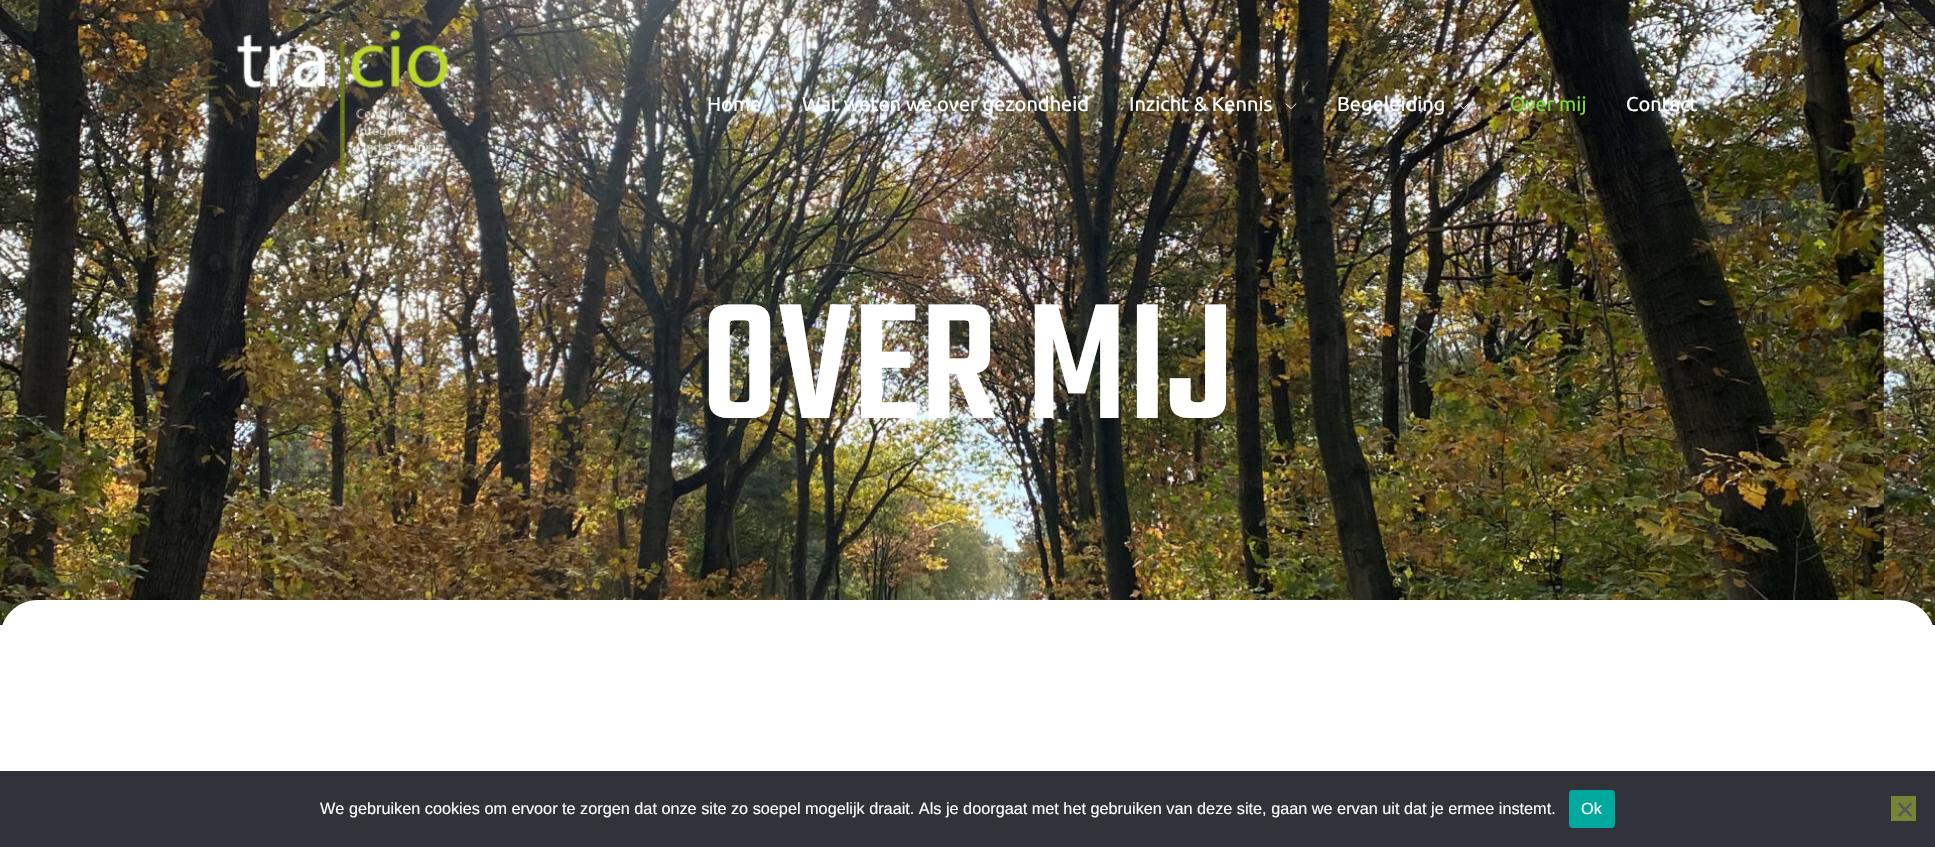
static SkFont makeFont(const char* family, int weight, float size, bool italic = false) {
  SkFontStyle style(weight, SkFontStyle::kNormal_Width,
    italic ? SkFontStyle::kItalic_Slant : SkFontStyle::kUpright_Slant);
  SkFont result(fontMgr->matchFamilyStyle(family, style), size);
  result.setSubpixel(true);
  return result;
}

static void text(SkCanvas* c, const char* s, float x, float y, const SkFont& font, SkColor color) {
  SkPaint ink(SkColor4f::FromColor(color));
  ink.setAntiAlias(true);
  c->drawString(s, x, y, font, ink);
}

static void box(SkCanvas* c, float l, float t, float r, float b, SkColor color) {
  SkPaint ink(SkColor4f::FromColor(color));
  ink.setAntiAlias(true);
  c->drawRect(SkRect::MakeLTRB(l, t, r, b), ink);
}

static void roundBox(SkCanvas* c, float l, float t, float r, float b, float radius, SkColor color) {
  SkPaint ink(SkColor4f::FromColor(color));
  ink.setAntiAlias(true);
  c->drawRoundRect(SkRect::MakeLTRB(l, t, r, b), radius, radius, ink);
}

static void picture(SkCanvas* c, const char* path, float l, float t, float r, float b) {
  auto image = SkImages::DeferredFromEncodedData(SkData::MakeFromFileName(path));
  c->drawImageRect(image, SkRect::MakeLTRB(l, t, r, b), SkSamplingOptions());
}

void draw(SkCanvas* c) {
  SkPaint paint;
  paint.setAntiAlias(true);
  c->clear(0xffffffff);
  picture(c, "img_04.png", 0, 0, 1935, 625);
  picture(c, "img_01.png", 236, 29, 449, 177);
  SkFont face1 = makeFont("Ubuntu", 400, 20);
  text(c, "Home", 707, 111, face1, 0xffffffff);
  text(c, "Wat weten we over gezondheid", 802, 111, face1, 0xffffffff);
  text(c, "Inzicht & Kennis", 1129, 111, face1, 0xffffffff);
  picture(c, "img_02.png", 1285, 103, 1297, 110);
  text(c, "Begeleiding", 1337, 111, face1, 0xffffffff);
  picture(c, "img_03.png", 1458, 103, 1469, 110);
  text(c, "Over mij", 1510, 111, face1, 0xff81d742);
  text(c, "Contact", 1626, 111, face1, 0xffffffff);
  SkFont face2 = makeFont("Teko", 300, 180);
  text(c, "OVER MIJ", 701, 418, face2, 0xffffffff);
  paint.setColor(0xffffffff);
  c->drawPath(SkPathBuilder().moveTo(38, 600).lineTo(1897, 600).cubicTo(1918, 600, 1935, 617, 1935, 638).lineTo(1935, 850).lineTo(0, 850).lineTo(0, 638).cubicTo(0, 617, 17, 600, 38, 600).close().detach(), paint);
  box(c, 0, 771, 1935, 847, 0xff32323a);
  SkFont face3 = makeFont("Liberation Sans", 400, 16.25f);
  text(c, "We gebruiken cookies om ervoor te zorgen dat onze site zo soepel mogelijk draait. Als je doorgaat met het gebruiken van deze site, gaan we ervan uit dat je ermee instemt.", 320, 814, face3, 0xffffffff);
  roundBox(c, 1569, 790, 1615, 828, 4, 0xff00a99d);
  text(c, "Ok", 1581, 814, face3, 0xffffffff);
  box(c, 1891, 796, 1916, 821, 0xff778435);
  paint.setColor(0xff59595d);
  c->drawPath(SkPathBuilder().moveTo(1910.5f, 802).lineTo(1912.5f, 804).lineTo(1899.5f, 817).lineTo(1897.5f, 815.5f).close().detach(), paint);
  c->drawPath(SkPathBuilder().moveTo(1897.5f, 804).lineTo(1899.5f, 802).lineTo(1912.5f, 815.5f).lineTo(1910.5f, 817).close().detach(), paint);
}
